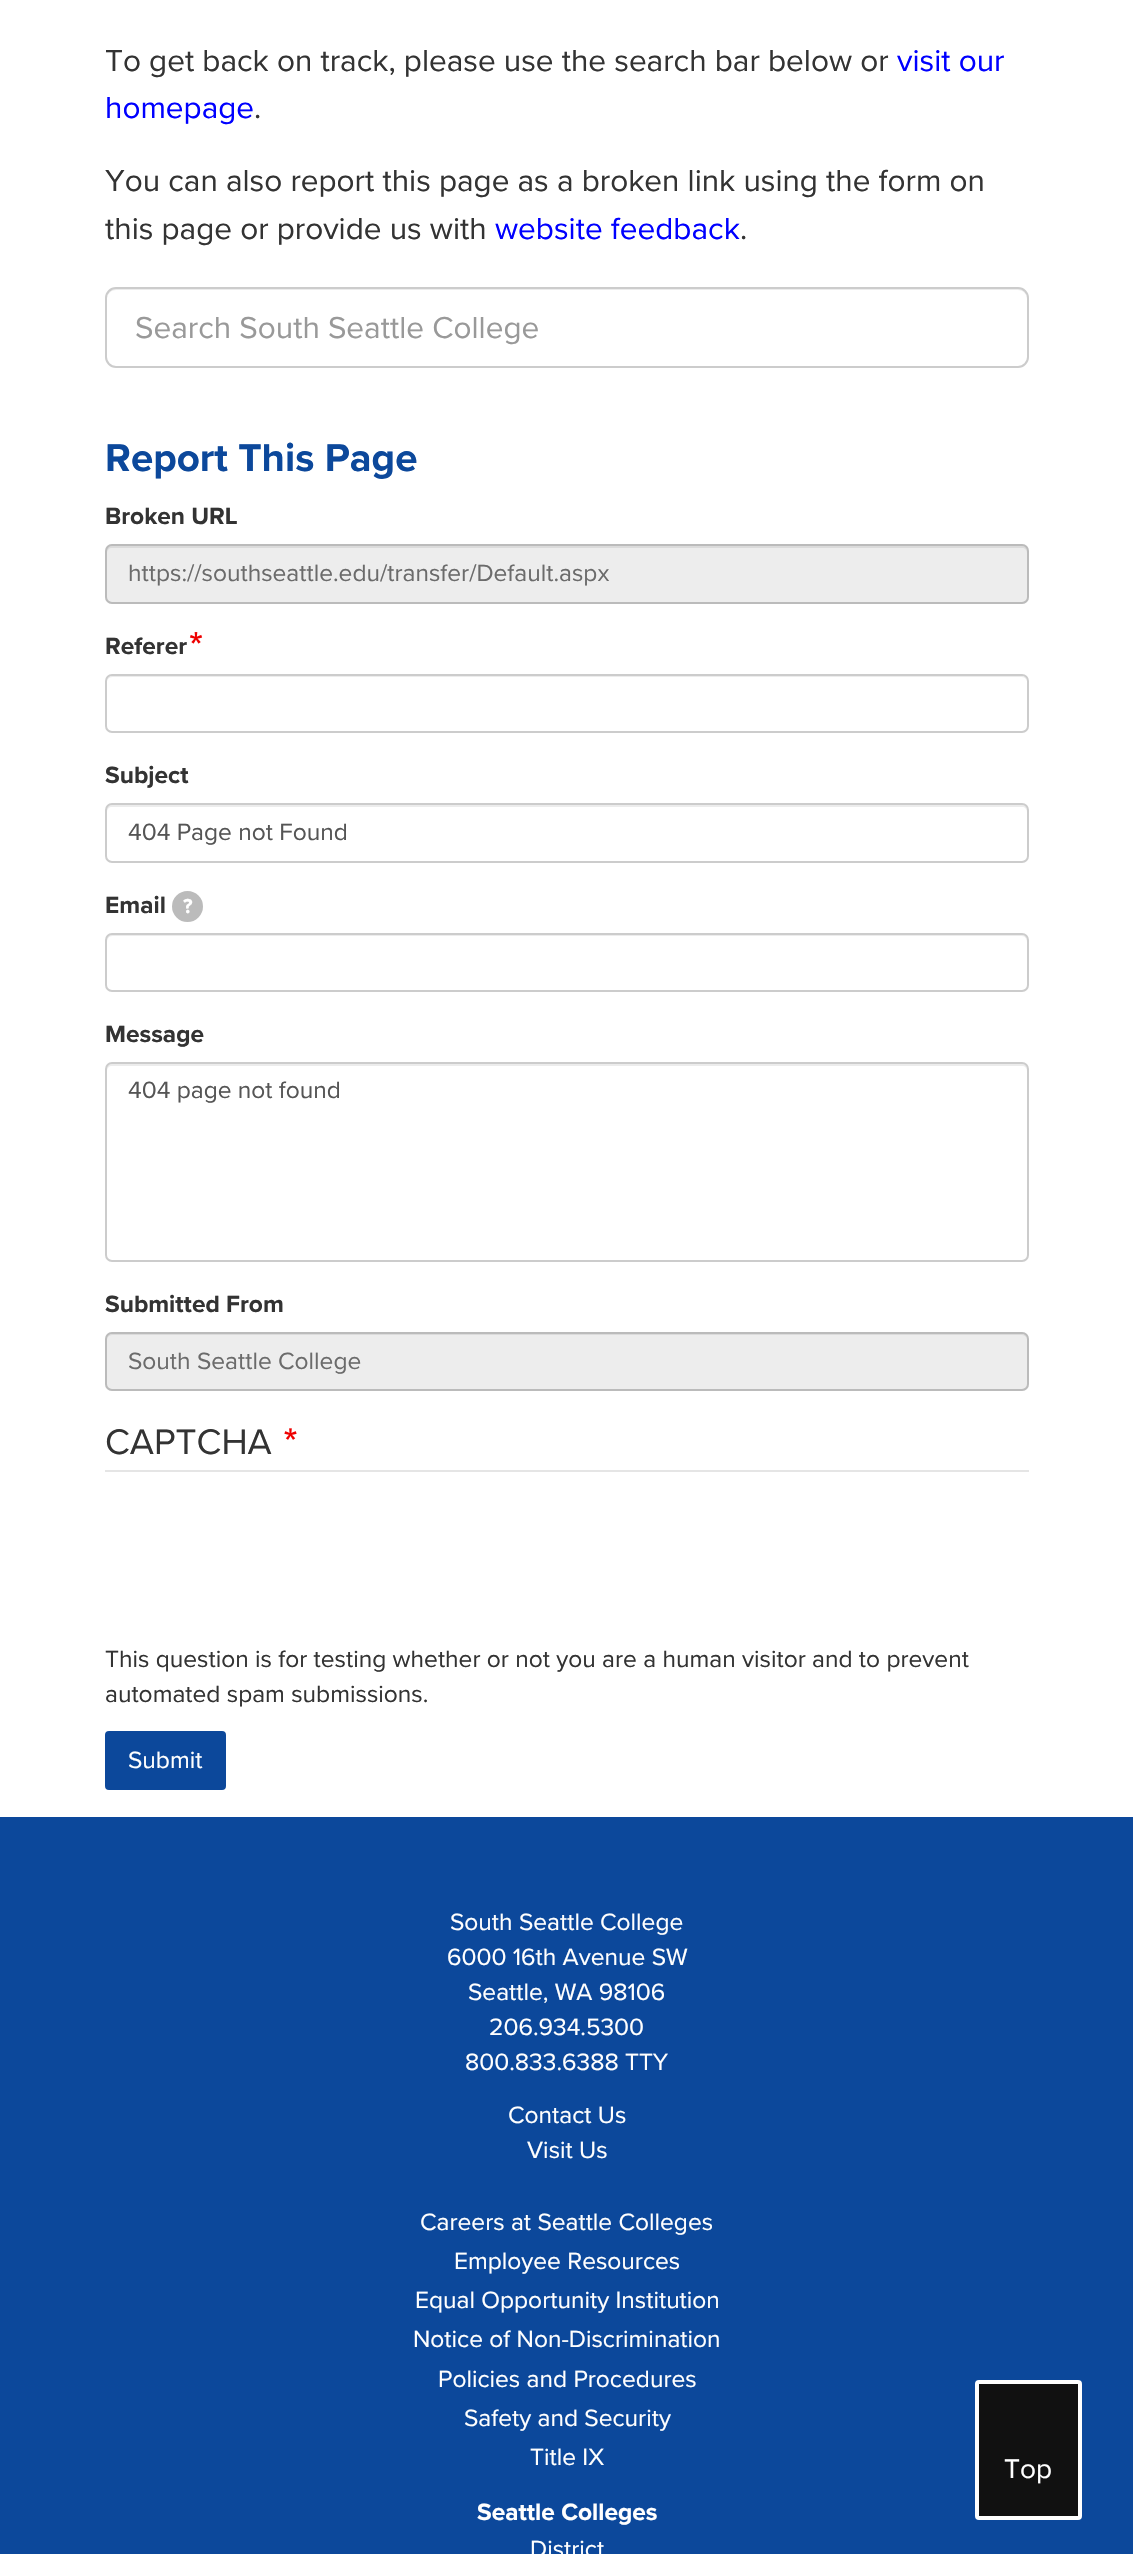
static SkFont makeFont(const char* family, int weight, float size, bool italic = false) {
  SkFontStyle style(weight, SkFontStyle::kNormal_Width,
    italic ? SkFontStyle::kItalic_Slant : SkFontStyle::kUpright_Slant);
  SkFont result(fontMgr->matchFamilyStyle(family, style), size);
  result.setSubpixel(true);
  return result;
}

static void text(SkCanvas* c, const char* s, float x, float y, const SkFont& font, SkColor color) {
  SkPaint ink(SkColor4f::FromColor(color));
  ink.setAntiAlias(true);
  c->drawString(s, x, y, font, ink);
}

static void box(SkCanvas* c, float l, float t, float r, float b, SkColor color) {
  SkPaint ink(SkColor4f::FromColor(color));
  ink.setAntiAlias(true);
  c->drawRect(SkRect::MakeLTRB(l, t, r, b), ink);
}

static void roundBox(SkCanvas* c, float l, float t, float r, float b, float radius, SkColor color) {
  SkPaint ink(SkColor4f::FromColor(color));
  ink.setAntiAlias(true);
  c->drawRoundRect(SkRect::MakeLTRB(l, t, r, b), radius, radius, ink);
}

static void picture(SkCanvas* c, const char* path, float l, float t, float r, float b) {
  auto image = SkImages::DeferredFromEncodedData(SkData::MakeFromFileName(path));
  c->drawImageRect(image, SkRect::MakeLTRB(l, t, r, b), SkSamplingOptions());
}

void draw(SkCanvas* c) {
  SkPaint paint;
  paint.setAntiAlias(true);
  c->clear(0xffffffff);
  SkFont face1 = makeFont("Proxima Nova", 400, 31.5f);
  text(c, "To get back on track, please use the search bar below or", 105, 71, face1, 0xff333333);
  text(c, "visit our", 897, 71, face1, 0xff0000ff);
  text(c, "homepage", 105, 118, face1, 0xff0000ff);
  text(c, ".", 254, 118, face1, 0xff333333);
  text(c, "You can also report this page as a broken link using the form on", 105, 191, face1, 0xff333333);
  text(c, "this page or provide us with", 105, 239, face1, 0xff333333);
  text(c, "website feedback", 495, 239, face1, 0xff0000ff);
  text(c, ".", 740, 239, face1, 0xff333333);
  paint.setColor(0xffececec);
  c->drawPath(SkPathBuilder().moveTo(116, 290).lineTo(1018, 290).cubicTo(1023, 290, 1027, 294, 1027, 299).lineTo(1027, 298).cubicTo(1027, 293, 1023, 289, 1018, 289).lineTo(116, 289).cubicTo(111, 289, 107, 293, 107, 298).lineTo(107, 299).cubicTo(107, 294, 111, 290, 116, 290).close().detach(), paint);
  paint.setStyle(SkPaint::kStroke_Style);
  paint.setStrokeWidth(2);
  paint.setColor(0xffcccccc);
  c->drawRoundRect(SkRect::MakeLTRB(106, 288, 1028, 367), 10, 10, paint);
  text(c, "Search South Seattle College", 135, 338, face1, 0xff999999);
  SkFont face2 = makeFont("Proxima Nova", 700, 40.25f);
  text(c, "Report This Page", 105, 471, face2, 0xff0c489b);
  SkFont face3 = makeFont("Proxima Nova", 700, 24.5f);
  text(c, "Broken URL", 105, 524, face3, 0xff333333);
  roundBox(c, 105, 544, 1029, 604, 7, 0xffededed);
  paint.setStyle(SkPaint::kFill_Style);
  paint.setColor(0xffdbdbdb);
  c->drawPath(SkPathBuilder().moveTo(112, 548).lineTo(1022, 548).cubicTo(1025, 548, 1027, 550, 1027, 553).lineTo(1027, 551).cubicTo(1027, 548, 1025, 546, 1022, 546).lineTo(112, 546).cubicTo(109, 546, 107, 548, 107, 551).lineTo(107, 553).cubicTo(107, 550, 109, 548, 112, 548).close().detach(), paint);
  paint.setStyle(SkPaint::kStroke_Style);
  paint.setColor(0xffbbbbbb);
  c->drawRoundRect(SkRect::MakeLTRB(106, 545, 1028, 603), 6, 6, paint);
  SkFont face4 = makeFont("Proxima Nova", 400, 24.5f);
  text(c, "https://southseattle.edu/transfer/Default.aspx", 128, 581, face4, 0xff6b6b6b);
  text(c, "Referer", 105, 654, face3, 0xff333333);
  picture(c, "img_01.png", 189, 632, 203, 644);
  paint.setStyle(SkPaint::kFill_Style);
  paint.setColor(0xffececec);
  c->drawPath(SkPathBuilder().moveTo(112, 677).lineTo(1022, 677).cubicTo(1025, 677, 1027, 680, 1027, 682).cubicTo(1027, 679, 1025, 676, 1022, 676).lineTo(112, 676).cubicTo(109, 676, 107, 679, 107, 682).cubicTo(107, 680, 109, 677, 112, 677).close().detach(), paint);
  paint.setStyle(SkPaint::kStroke_Style);
  paint.setColor(0xffcccccc);
  c->drawRoundRect(SkRect::MakeLTRB(106, 675, 1028, 732), 6, 6, paint);
  text(c, "Subject", 105, 783, face3, 0xff333333);
  paint.setStyle(SkPaint::kFill_Style);
  paint.setColor(0xffececec);
  c->drawPath(SkPathBuilder().moveTo(112, 807).lineTo(1022, 807).cubicTo(1025, 807, 1027, 809, 1027, 812).lineTo(1027, 810).cubicTo(1027, 807, 1025, 805, 1022, 805).lineTo(112, 805).cubicTo(109, 805, 107, 807, 107, 810).lineTo(107, 812).cubicTo(107, 809, 109, 807, 112, 807).close().detach(), paint);
  paint.setStyle(SkPaint::kStroke_Style);
  paint.setColor(0xffcccccc);
  c->drawRoundRect(SkRect::MakeLTRB(106, 804, 1028, 862), 6, 6, paint);
  text(c, "404 Page not Found", 128, 840, face4, 0xff555555);
  text(c, "Email", 105, 913, face3, 0xff333333);
  paint.setStyle(SkPaint::kFill_Style);
  paint.setColor(0xffbbbbbb);
  c->drawCircle(187.5f, 906.5f, 13.5f, paint);
  paint.setStyle(SkPaint::kStroke_Style);
  paint.setStrokeWidth(4);
  c->drawCircle(187.5f, 906.5f, 13.5f, paint);
  SkFont face5 = makeFont("Proxima Nova", 700, 21);
  text(c, "?", 183, 913, face5, 0xffffffff);
  paint.setStyle(SkPaint::kFill_Style);
  paint.setColor(0xffececec);
  c->drawPath(SkPathBuilder().moveTo(112, 936).lineTo(1022, 936).cubicTo(1025, 936, 1027, 939, 1027, 942).lineTo(1027, 940).cubicTo(1027, 937, 1025, 935, 1022, 935).lineTo(112, 935).cubicTo(109, 935, 107, 937, 107, 940).lineTo(107, 942).cubicTo(107, 939, 109, 936, 112, 936).close().detach(), paint);
  paint.setStyle(SkPaint::kStroke_Style);
  paint.setStrokeWidth(2);
  paint.setColor(0xffcccccc);
  c->drawRoundRect(SkRect::MakeLTRB(106, 934, 1028, 991), 6, 6, paint);
  text(c, "Message", 105, 1042, face3, 0xff333333);
  paint.setStyle(SkPaint::kFill_Style);
  paint.setColor(0xffececec);
  c->drawPath(SkPathBuilder().moveTo(112, 1066).lineTo(1022, 1066).cubicTo(1025, 1066, 1027, 1068, 1027, 1071).lineTo(1027, 1069).cubicTo(1027, 1066, 1025, 1064, 1022, 1064).lineTo(112, 1064).cubicTo(109, 1064, 107, 1066, 107, 1069).lineTo(107, 1071).cubicTo(107, 1068, 109, 1066, 112, 1066).close().detach(), paint);
  paint.setStyle(SkPaint::kStroke_Style);
  paint.setColor(0xffcccccc);
  c->drawRoundRect(SkRect::MakeLTRB(106, 1063, 1028, 1261), 6, 6, paint);
  text(c, "404 page not found", 128, 1098, face4, 0xff555555);
  text(c, "Submitted From", 105, 1312, face3, 0xff333333);
  roundBox(c, 105, 1332, 1029, 1391, 7, 0xffededed);
  paint.setStyle(SkPaint::kFill_Style);
  paint.setColor(0xffdbdbdb);
  c->drawPath(SkPathBuilder().moveTo(112, 1335).lineTo(1022, 1335).cubicTo(1025, 1335, 1027, 1338, 1027, 1340).cubicTo(1027, 1337, 1025, 1334, 1022, 1334).lineTo(112, 1334).cubicTo(109, 1334, 107, 1337, 107, 1340).cubicTo(107, 1338, 109, 1335, 112, 1335).close().detach(), paint);
  paint.setStyle(SkPaint::kStroke_Style);
  paint.setColor(0xffbbbbbb);
  c->drawRoundRect(SkRect::MakeLTRB(106, 1333, 1028, 1390), 6, 6, paint);
  text(c, "South Seattle College", 128, 1369, face4, 0xff6b6b6b);
  box(c, 105, 1470, 1029, 1472, 0xffe5e5e5);
  SkFont face6 = makeFont("Proxima Nova", 400, 36.75f);
  text(c, "CAPTCHA", 105, 1454, face6, 0xff333333);
  picture(c, "img_02.png", 284, 1428, 297, 1440);
  text(c, "This question is for testing whether or not you are a human visitor and to prevent", 105, 1667, face4, 0xff333333);
  text(c, "automated spam submissions.", 105, 1702, face4, 0xff333333);
  paint.setStyle(SkPaint::kFill_Style);
  paint.setColor(0xff0c489b);
  c->drawRoundRect(SkRect::MakeLTRB(106, 1732, 225, 1789), 3, 3, paint);
  paint.setStyle(SkPaint::kStroke_Style);
  c->drawRoundRect(SkRect::MakeLTRB(106, 1732, 225, 1789), 3, 3, paint);
  text(c, "Submit", 128, 1768, face4, 0xffffffff);
  box(c, 0, 1817, 1133, 2554, 0xff0c489b);
  text(c, "South Seattle College", 450, 1930, face4, 0xffffffff);
  text(c, "6000 16th Avenue SW", 447, 1965, face4, 0xffffffff);
  text(c, "Seattle, WA 98106", 468, 2000, face4, 0xffffffff);
  text(c, "206.934.5300", 489, 2035, face4, 0xffffffff);
  text(c, "800.833.6388 TTY", 465, 2070, face4, 0xffffffff);
  text(c, "Contact Us", 508, 2123, face4, 0xffffffff);
  text(c, "Visit Us", 527, 2158, face4, 0xffffffff);
  text(c, "Careers at Seattle Colleges", 420, 2230, face4, 0xffffffff);
  text(c, "Employee Resources", 454, 2269, face4, 0xffffffff);
  text(c, "Equal Opportunity Institution", 415, 2308, face4, 0xffffffff);
  text(c, "Notice of Non-Discrimination", 413, 2347, face4, 0xffffffff);
  text(c, "Policies and Procedures", 438, 2387, face4, 0xffffffff);
  text(c, "Safety and Security", 464, 2426, face4, 0xffffffff);
  text(c, "Title IX", 530, 2465, face4, 0xffffffff);
  text(c, "Seattle Colleges", 477, 2520, face3, 0xffffffff);
  text(c, "District", 530, 2557, face4, 0xffffffff);
  paint.setStyle(SkPaint::kFill_Style);
  paint.setColor(0xff111111);
  c->drawRoundRect(SkRect::MakeLTRB(977, 2382, 1080, 2518), 2, 2, paint);
  paint.setStyle(SkPaint::kStroke_Style);
  paint.setStrokeWidth(4);
  paint.setColor(0xffffffff);
  c->drawRoundRect(SkRect::MakeLTRB(977, 2382, 1080, 2518), 2, 2, paint);
  SkFont face7 = makeFont("Proxima Nova", 400, 28);
  text(c, "Top", 1004, 2478, face7, 0xffffffff);
}
